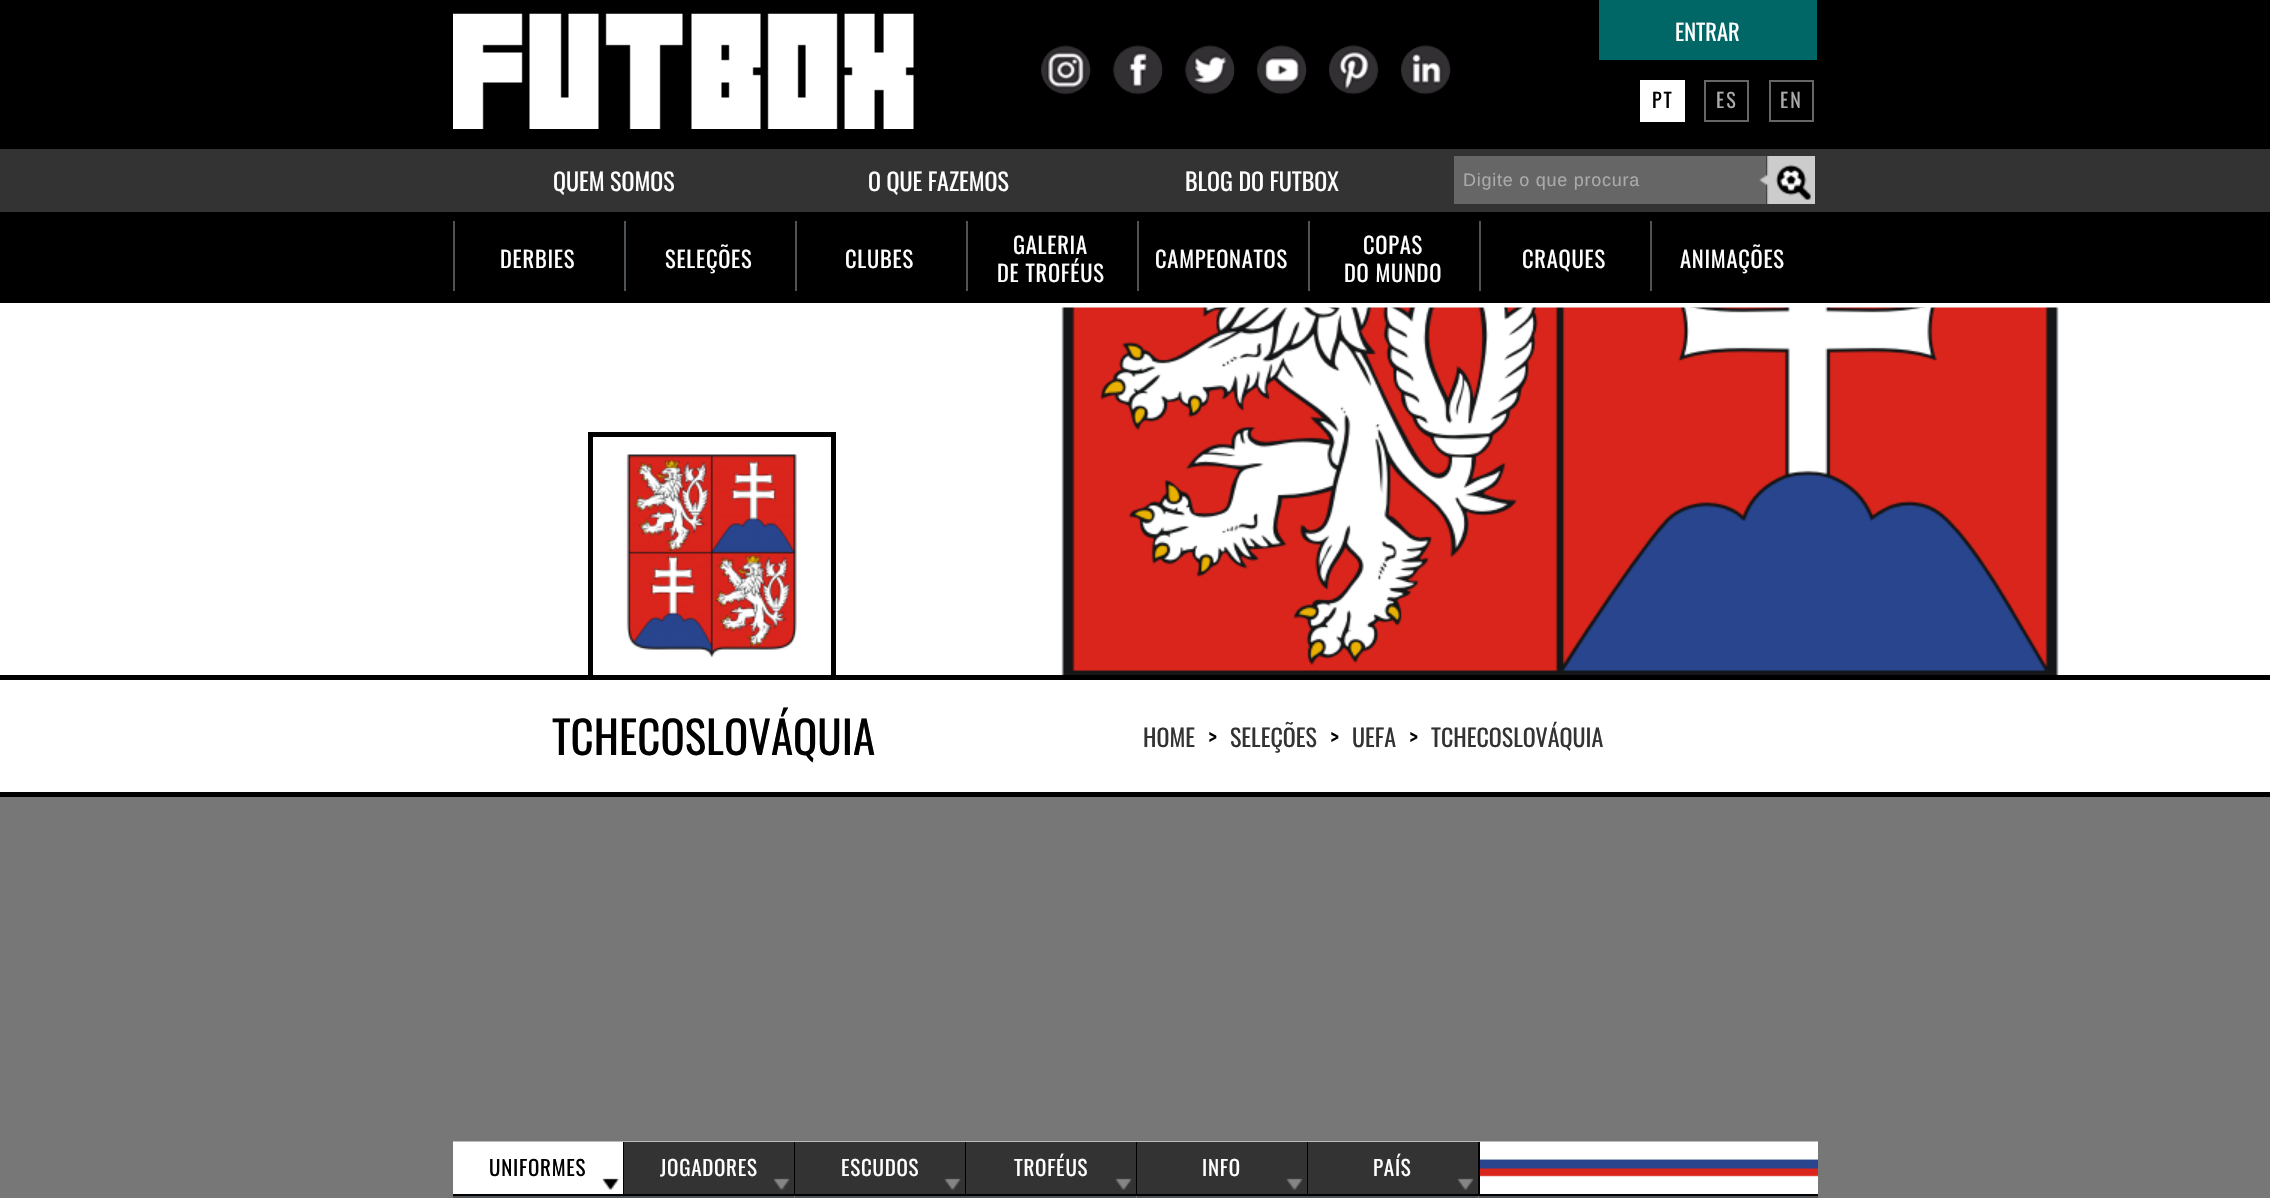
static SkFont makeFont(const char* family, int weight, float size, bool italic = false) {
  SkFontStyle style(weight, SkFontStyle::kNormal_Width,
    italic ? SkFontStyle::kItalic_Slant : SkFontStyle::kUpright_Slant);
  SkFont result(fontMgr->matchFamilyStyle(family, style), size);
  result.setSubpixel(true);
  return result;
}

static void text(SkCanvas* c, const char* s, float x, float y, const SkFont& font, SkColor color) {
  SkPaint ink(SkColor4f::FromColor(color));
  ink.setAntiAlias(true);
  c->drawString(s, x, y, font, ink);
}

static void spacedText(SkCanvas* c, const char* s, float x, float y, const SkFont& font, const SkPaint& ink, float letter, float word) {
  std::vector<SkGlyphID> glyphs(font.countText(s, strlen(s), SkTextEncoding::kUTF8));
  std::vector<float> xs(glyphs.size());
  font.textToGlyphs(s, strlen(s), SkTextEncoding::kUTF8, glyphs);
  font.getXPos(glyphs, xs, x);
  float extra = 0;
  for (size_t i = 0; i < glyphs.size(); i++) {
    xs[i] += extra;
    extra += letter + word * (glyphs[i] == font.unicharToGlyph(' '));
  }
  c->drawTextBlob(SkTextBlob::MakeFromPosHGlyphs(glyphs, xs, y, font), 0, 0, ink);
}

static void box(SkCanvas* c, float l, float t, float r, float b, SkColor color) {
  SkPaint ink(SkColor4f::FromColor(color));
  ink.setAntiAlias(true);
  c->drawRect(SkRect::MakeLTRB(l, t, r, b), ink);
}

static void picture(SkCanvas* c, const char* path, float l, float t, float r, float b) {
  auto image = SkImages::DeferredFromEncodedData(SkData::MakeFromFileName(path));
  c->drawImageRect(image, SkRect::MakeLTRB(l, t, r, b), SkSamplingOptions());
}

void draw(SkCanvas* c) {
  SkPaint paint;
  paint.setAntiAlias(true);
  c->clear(0xff777777);
  box(c, 0, 0, 2270, 303, 0xff000000);
  picture(c, "img_01.png", 453, 13, 914, 129);
  picture(c, "img_02.png", 1041, 45, 1091, 95);
  picture(c, "img_03.png", 1113, 45, 1163, 95);
  picture(c, "img_04.png", 1185, 45, 1235, 95);
  picture(c, "img_05.png", 1257, 45, 1307, 95);
  picture(c, "img_06.png", 1329, 45, 1379, 95);
  picture(c, "img_07.png", 1401, 45, 1451, 95);
  box(c, 1599, 0, 1817, 60, 0xff006666);
  SkFont face1 = makeFont("Oswald", 400, 22.5f);
  text(c, "ENTRAR", 1675, 41, face1, 0xffffffff);
  box(c, 1640, 80, 1685, 122, 0xffffffff);
  SkFont face2 = makeFont("Oswald", 400, 20);
  paint.setColor(0xff000000);
  spacedText(c, "PT", 1652, 108, face2, paint, 2, 0);
  paint.setStyle(SkPaint::kStroke_Style);
  paint.setStrokeWidth(2);
  paint.setColor(0xff666666);
  c->drawRect(SkRect::MakeLTRB(1705, 81, 1748, 121), paint);
  paint.setStyle(SkPaint::kFill_Style);
  paint.setColor(0xffaaaaaa);
  spacedText(c, "ES", 1716, 108, face2, paint, 2, 0);
  paint.setStyle(SkPaint::kStroke_Style);
  paint.setColor(0xff666666);
  c->drawRect(SkRect::MakeLTRB(1770, 81, 1813, 121), paint);
  paint.setStyle(SkPaint::kFill_Style);
  paint.setColor(0xffaaaaaa);
  spacedText(c, "EN", 1780, 108, face2, paint, 2, 0);
  box(c, 0, 149, 2270, 212, 0xff333333);
  SkFont face3 = makeFont("Oswald", 400, 24);
  text(c, "QUEM SOMOS", 553, 191, face3, 0xffffffff);
  text(c, "O QUE FAZEMOS", 868, 191, face3, 0xffffffff);
  text(c, "BLOG DO FUTBOX", 1185, 191, face3, 0xffffffff);
  box(c, 1454, 156, 1766, 204, 0xff666666);
  SkFont face4 = makeFont("Liberation Sans", 400, 18);
  spacedText(c, "Digite o que procura", 1463, 186, face4, paint, 0.75f, 0);
  picture(c, "img_08.png", 1759, 156, 1815, 204);
  box(c, 0, 303, 2270, 792, 0xffffffff);
  box(c, 453, 221, 455, 291, 0xff4d5356);
  paint.setColor(0xffffffff);
  spacedText(c, "DERBIES", 500, 268, face1, paint, 0.75f, 0);
  box(c, 624, 221, 626, 291, 0xff4d5356);
  spacedText(c, "SELEÇÕES", 665, 268, face1, paint, 0.75f, 0);
  box(c, 795, 221, 797, 291, 0xff4d5356);
  spacedText(c, "CLUBES", 845, 268, face1, paint, 0.75f, 0);
  box(c, 966, 221, 968, 291, 0xff4d5356);
  spacedText(c, "GALERIA", 1013, 254, face1, paint, 0.75f, 0);
  spacedText(c, "DE TROFÉUS", 997, 282, face1, paint, 0.75f, 0);
  box(c, 1137, 221, 1139, 291, 0xff4d5356);
  spacedText(c, "CAMPEONATOS", 1155, 268, face1, paint, 0.75f, 0);
  box(c, 1308, 221, 1310, 291, 0xff4d5356);
  spacedText(c, "COPAS", 1363, 254, face1, paint, 0.75f, 0);
  spacedText(c, "DO MUNDO", 1344, 282, face1, paint, 0.75f, 0);
  box(c, 1479, 221, 1481, 291, 0xff4d5356);
  spacedText(c, "CRAQUES", 1522, 268, face1, paint, 0.75f, 0);
  box(c, 1650, 221, 1652, 291, 0xff4d5356);
  spacedText(c, "ANIMAÇÕES", 1680, 268, face1, paint, 0.75f, 0);
  paint.setStyle(SkPaint::kStroke_Style);
  paint.setStrokeWidth(5);
  paint.setColor(0xff000000);
  c->drawRect(SkRect::MakeLTRB(590.5f, 434.5f, 833.5f, 677.5f), paint);
  picture(c, "img_09.png", 626, 454, 797, 657);
  picture(c, "img_10.png", 1061, 307, 2059, 675);
  box(c, 0, 675, 2270, 680, 0xff000000);
  box(c, 0, 792, 2270, 797, 0xff000000);
  SkFont face5 = makeFont("Oswald", 400, 45);
  text(c, "TCHECOSLOVÁQUIA", 552, 755, face5, 0xff000000);
  text(c, "HOME", 1143, 747, face3, 0xff333333);
  text(c, ">", 1208, 747, face3, 0xff000000);
  text(c, "SELEÇÕES", 1230, 747, face3, 0xff333333);
  text(c, ">", 1330, 747, face3, 0xff000000);
  text(c, "UEFA", 1352, 747, face3, 0xff333333);
  text(c, ">", 1409, 747, face3, 0xff000000);
  text(c, "TCHECOSLOVÁQUIA", 1431, 747, face3, 0xff333333);
  picture(c, "img_11.png", 453, 1141, 1818, 1194);
  box(c, 453, 1194, 1818, 1196, 0xff000000);
  box(c, 453, 1159, 623, 1177, 0xffffffff);
  picture(c, "img_12.png", 602, 1178, 619, 1190);
  box(c, 623, 1142, 624, 1194, 0xff000000);
  SkFont face6 = makeFont("Oswald", 400, 21);
  paint.setStyle(SkPaint::kFill_Style);
  spacedText(c, "UNIFORMES", 489, 1176, face6, paint, 0.75f, 0);
  box(c, 624, 1142, 794, 1194, 0xff333333);
  picture(c, "img_13.png", 773, 1178, 790, 1190);
  box(c, 794, 1142, 795, 1194, 0xff000000);
  paint.setColor(0xffffffff);
  spacedText(c, "JOGADORES", 660, 1176, face6, paint, 0.75f, 0);
  box(c, 795, 1142, 965, 1194, 0xff333333);
  picture(c, "img_13.png", 944, 1178, 961, 1190);
  box(c, 965, 1142, 966, 1194, 0xff000000);
  spacedText(c, "ESCUDOS", 841, 1176, face6, paint, 0.75f, 0);
  box(c, 966, 1142, 1136, 1194, 0xff333333);
  picture(c, "img_14.png", 1115, 1178, 1132, 1190);
  box(c, 1136, 1142, 1137, 1194, 0xff000000);
  spacedText(c, "TROFÉUS", 1014, 1176, face6, paint, 0.75f, 0);
  box(c, 1137, 1142, 1307, 1194, 0xff333333);
  picture(c, "img_13.png", 1286, 1178, 1303, 1190);
  box(c, 1307, 1142, 1308, 1194, 0xff000000);
  spacedText(c, "INFO", 1202, 1176, face6, paint, 0.75f, 0);
  box(c, 1308, 1142, 1478, 1194, 0xff333333);
  picture(c, "img_13.png", 1457, 1178, 1474, 1190);
  box(c, 1478, 1142, 1480, 1194, 0xff000000);
  spacedText(c, "PAÍS", 1373, 1176, face6, paint, 0.75f, 0);
  box(c, 453, 1196, 794, 1198, 0xff4d5356);
  box(c, 795, 1196, 1136, 1198, 0xff4d5356);
  box(c, 1137, 1196, 1478, 1198, 0xff4d5356);
  box(c, 1479, 1196, 1818, 1198, 0xff4d5356);
}
